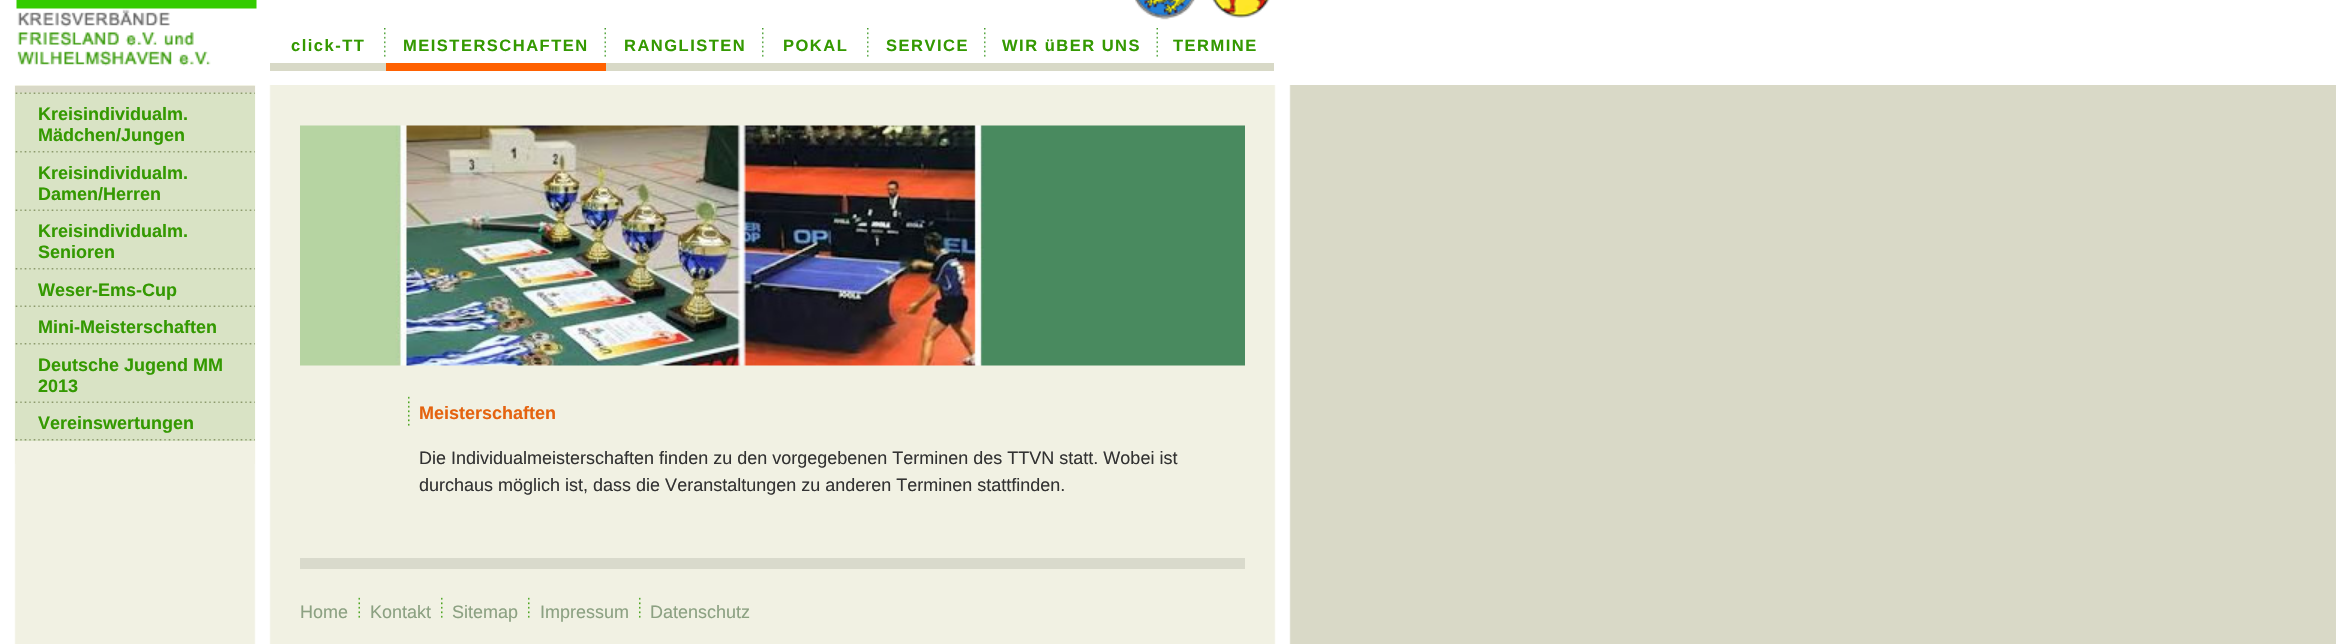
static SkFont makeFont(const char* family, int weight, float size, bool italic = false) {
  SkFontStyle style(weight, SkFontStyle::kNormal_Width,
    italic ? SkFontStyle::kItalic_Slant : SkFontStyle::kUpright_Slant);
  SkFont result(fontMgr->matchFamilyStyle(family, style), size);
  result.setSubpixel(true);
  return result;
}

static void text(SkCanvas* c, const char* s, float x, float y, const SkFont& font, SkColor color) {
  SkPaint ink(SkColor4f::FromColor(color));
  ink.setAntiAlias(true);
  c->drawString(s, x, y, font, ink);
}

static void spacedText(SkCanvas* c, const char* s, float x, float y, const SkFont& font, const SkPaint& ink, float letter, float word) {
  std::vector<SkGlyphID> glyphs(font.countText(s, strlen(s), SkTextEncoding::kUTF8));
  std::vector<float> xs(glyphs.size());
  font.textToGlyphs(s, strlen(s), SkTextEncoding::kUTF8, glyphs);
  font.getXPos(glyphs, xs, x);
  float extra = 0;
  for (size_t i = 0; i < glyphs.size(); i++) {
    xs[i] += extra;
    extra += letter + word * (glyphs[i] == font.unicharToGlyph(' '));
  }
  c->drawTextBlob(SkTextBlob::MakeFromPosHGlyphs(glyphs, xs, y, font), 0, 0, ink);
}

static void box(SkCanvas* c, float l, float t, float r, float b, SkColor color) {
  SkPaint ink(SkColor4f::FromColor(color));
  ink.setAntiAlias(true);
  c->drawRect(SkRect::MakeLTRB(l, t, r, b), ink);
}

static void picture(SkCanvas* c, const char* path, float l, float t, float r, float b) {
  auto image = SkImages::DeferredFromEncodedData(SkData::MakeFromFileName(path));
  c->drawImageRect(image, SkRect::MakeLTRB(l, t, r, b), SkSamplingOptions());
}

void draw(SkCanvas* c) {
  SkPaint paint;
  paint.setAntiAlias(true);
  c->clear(0xffffffff);
  picture(c, "img_01.png", 14, 85, 2336, 644);
  picture(c, "img_02.png", 16, 0, 257, 66);
  picture(c, "img_03.png", 1135, 0, 1270, 20);
  picture(c, "img_04.png", 384, 28, 386, 57);
  box(c, 270, 63, 386, 71, 0xffd8d9c7);
  SkFont face1 = makeFont("Liberation Sans", 700, 16.5f);
  paint.setColor(0xff349901);
  spacedText(c, "click-TT", 291, 51, face1, paint, 1.5f, 0);
  picture(c, "img_05.png", 604, 28, 606, 57);
  box(c, 386, 63, 606, 71, 0xffff6101);
  spacedText(c, "MEISTERSCHAFTEN", 403, 51, face1, paint, 1.5f, 0);
  picture(c, "img_04.png", 762, 28, 764, 57);
  box(c, 606, 63, 1274, 71, 0xffd8d9c7);
  spacedText(c, "RANGLISTEN", 624, 51, face1, paint, 1.5f, 0);
  picture(c, "img_04.png", 867, 28, 869, 57);
  spacedText(c, "POKAL", 783, 51, face1, paint, 1.5f, 0);
  picture(c, "img_04.png", 984, 28, 986, 57);
  spacedText(c, "SERVICE", 886, 51, face1, paint, 1.5f, 0);
  picture(c, "img_05.png", 1156, 28, 1158, 57);
  spacedText(c, "WIR üBER UNS", 1002, 51, face1, paint, 1.5f, 0);
  spacedText(c, "TERMINE", 1173, 51, face1, paint, 1.5f, 0);
  box(c, 15, 86, 255, 93, 0xffd9d9c7);
  box(c, 15, 94, 255, 151, 0xffd9e3c5);
  picture(c, "img_06.png", 15, 92, 255, 94);
  SkFont face2 = makeFont("Liberation Sans", 700, 18);
  text(c, "Kreisindividualm.", 38, 120, face2, 0xff349901);
  text(c, "Mädchen/Jungen", 38, 141, face2, 0xff349901);
  box(c, 15, 152, 255, 210, 0xffd9e3c5);
  picture(c, "img_07.png", 15, 151, 255, 153);
  text(c, "Kreisindividualm.", 38, 179, face2, 0xff349901);
  text(c, "Damen/Herren", 38, 200, face2, 0xff349901);
  box(c, 15, 211, 255, 268, 0xffd9e3c5);
  picture(c, "img_08.png", 15, 209, 255, 211);
  text(c, "Kreisindividualm.", 38, 237, face2, 0xff349901);
  text(c, "Senioren", 38, 258, face2, 0xff349901);
  box(c, 15, 269, 255, 306, 0xffd9e3c5);
  picture(c, "img_07.png", 15, 268, 255, 270);
  text(c, "Weser-Ems-Cup", 38, 296, face2, 0xff349901);
  box(c, 15, 307, 255, 343, 0xffd9e3c5);
  picture(c, "img_08.png", 15, 305, 255, 307);
  text(c, "Mini-Meisterschaften", 38, 333, face2, 0xff349901);
  box(c, 15, 344, 255, 402, 0xffd9e3c5);
  picture(c, "img_07.png", 15, 343, 255, 345);
  text(c, "Deutsche Jugend MM", 38, 371, face2, 0xff349901);
  text(c, "2013", 38, 392, face2, 0xff349901);
  box(c, 15, 403, 255, 439, 0xffd9e3c5);
  picture(c, "img_08.png", 15, 401, 255, 403);
  text(c, "Vereinswertungen", 38, 429, face2, 0xff349901);
  box(c, 15, 440, 255, 441, 0xffd9e3c5);
  picture(c, "img_07.png", 15, 439, 255, 441);
  box(c, 15, 441, 255, 464, 0xfff1f1e3);
  picture(c, "img_09.png", 300, 125, 1245, 366);
  picture(c, "img_10.png", 408, 396, 410, 426);
  text(c, "Meisterschaften", 419, 419, face2, 0xffe5630f);
  SkFont face3 = makeFont("Liberation Sans", 400, 18);
  text(c, "Die Individualmeisterschaften finden zu den vorgegebenen Terminen des TTVN statt. Wobei ist", 419, 464, face3, 0xff333333);
  text(c, "durchaus möglich ist, dass die Veranstaltungen zu anderen Terminen stattfinden.", 419, 491, face3, 0xff333333);
  box(c, 300, 558, 1245, 569, 0xffd9dacc);
  text(c, "Home", 300, 618, face3, 0xff8ca182);
  picture(c, "img_11.png", 358, 597, 360, 618);
  text(c, "Kontakt", 370, 618, face3, 0xff8ca182);
  picture(c, "img_12.png", 441, 597, 443, 618);
  text(c, "Sitemap", 452, 618, face3, 0xff8ca182);
  picture(c, "img_12.png", 528, 597, 530, 618);
  text(c, "Impressum", 540, 618, face3, 0xff8ca182);
  picture(c, "img_12.png", 639, 597, 641, 618);
  text(c, "Datenschutz", 650, 618, face3, 0xff8ca182);
}
